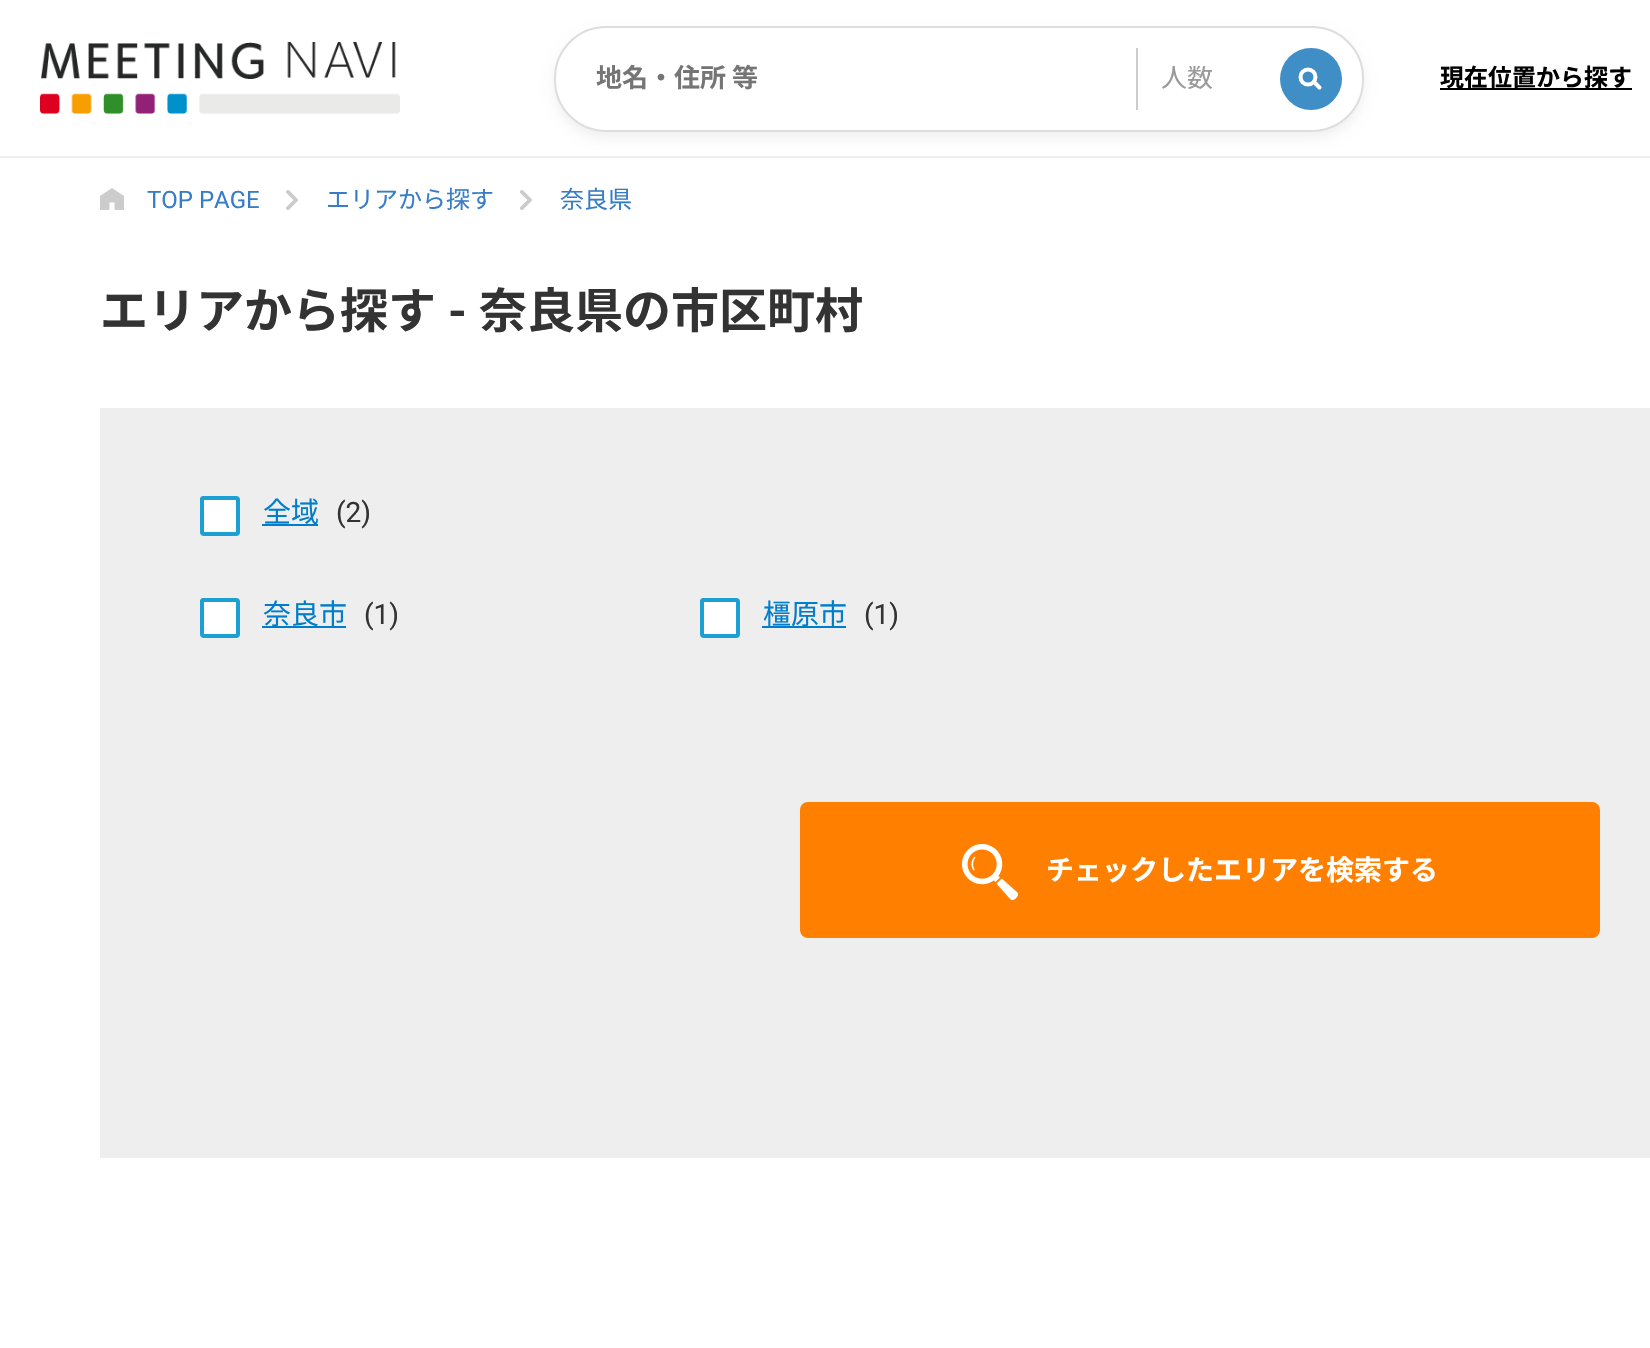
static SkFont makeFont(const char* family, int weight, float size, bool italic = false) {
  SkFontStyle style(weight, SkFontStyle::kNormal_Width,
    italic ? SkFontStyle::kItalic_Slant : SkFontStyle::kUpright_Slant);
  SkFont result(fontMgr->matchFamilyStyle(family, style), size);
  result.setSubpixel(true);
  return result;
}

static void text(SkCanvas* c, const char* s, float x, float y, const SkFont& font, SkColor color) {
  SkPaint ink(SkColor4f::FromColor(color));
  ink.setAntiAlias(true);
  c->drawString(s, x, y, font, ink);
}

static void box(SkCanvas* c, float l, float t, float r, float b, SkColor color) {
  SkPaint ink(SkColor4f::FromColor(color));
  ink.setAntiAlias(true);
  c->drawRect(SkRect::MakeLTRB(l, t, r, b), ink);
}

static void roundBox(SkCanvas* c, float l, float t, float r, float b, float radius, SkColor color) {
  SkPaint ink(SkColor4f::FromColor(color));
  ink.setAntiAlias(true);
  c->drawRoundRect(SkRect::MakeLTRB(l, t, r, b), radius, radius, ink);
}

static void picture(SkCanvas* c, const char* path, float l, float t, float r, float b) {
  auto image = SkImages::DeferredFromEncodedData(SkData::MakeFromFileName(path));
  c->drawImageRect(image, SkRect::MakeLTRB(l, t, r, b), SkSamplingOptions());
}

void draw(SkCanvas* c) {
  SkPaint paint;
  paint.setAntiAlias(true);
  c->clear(0xffffffff);
  box(c, 0, 156, 1650, 158, 0xffeeeeee);
  picture(c, "img_01.png", 40, 42, 400, 114);
  c->save();
  c->clipPath(SkPathBuilder(SkPathFillType::kEvenOdd).moveTo(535, 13).lineTo(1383, 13).lineTo(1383, 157).lineTo(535, 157).close().moveTo(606, 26).lineTo(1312, 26).cubicTo(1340.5f, 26, 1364, 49.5f, 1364, 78).lineTo(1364, 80).cubicTo(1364, 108.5f, 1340.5f, 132, 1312, 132).lineTo(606, 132).cubicTo(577.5f, 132, 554, 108.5f, 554, 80).lineTo(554, 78).cubicTo(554, 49.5f, 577.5f, 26, 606, 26).close().detach(), true);
  paint.setColor(0x0f000000);
  paint.setMaskFilter(SkMaskFilter::MakeBlur(kNormal_SkBlurStyle, 6));
  c->drawRoundRect(SkRect::MakeLTRB(554, 32, 1364, 138), 52, 52, paint);
  paint.setMaskFilter(nullptr);
  c->restore();
  paint.setStyle(SkPaint::kStroke_Style);
  paint.setStrokeWidth(2);
  paint.setColor(0xffdddddd);
  c->drawRoundRect(SkRect::MakeLTRB(555, 27, 1363, 131), 51, 51, paint);
  SkFont face1 = makeFont("Noto Sans JP", 700, 26);
  text(c, "地名・住所 等", 596, 87, face1, 0xff757575);
  box(c, 1136, 48, 1138, 110, 0xffcccccc);
  c->save();
  c->clipRect(SkRect::MakeLTRB(1160, 66, 1256, 92));
  SkFont face2 = makeFont("Noto Sans JP", 400, 26);
  text(c, "人数", 1161, 87, face2, 0xff999999);
  c->restore();
  paint.setStyle(SkPaint::kFill_Style);
  paint.setColor(0xff3f8ec6);
  c->drawCircle(1311, 79, 31, paint);
  paint.setStyle(SkPaint::kStroke_Style);
  paint.setStrokeWidth(4);
  paint.setColor(0xffffffff);
  c->drawCircle(1308, 77, 7.5f, paint);
  paint.setStrokeCap(SkPaint::kRound_Cap);
  c->drawPath(SkPathBuilder().moveTo(1315.5f, 83.5f).lineTo(1319.5f, 87.5f).detach(), paint);
  box(c, 1440, 88, 1632, 90, 0xff000000);
  SkFont face3 = makeFont("Noto Sans JP", 700, 24);
  text(c, "現在位置から探す", 1440, 86, face3, 0xff000000);
  picture(c, "img_02.png", 100, 188, 124, 210);
  SkFont face4 = makeFont("Roboto", 400, 24);
  text(c, "TOP PAGE", 147, 208, face4, 0xff367cc6);
  picture(c, "img_03.png", 286, 190, 298, 210);
  SkFont face5 = makeFont("Noto Sans JP", 400, 24);
  text(c, "エリアから探す", 326, 208, face5, 0xff367cc6);
  picture(c, "img_03.png", 520, 190, 532, 210);
  text(c, "奈良県", 560, 208, face5, 0xff367cc6);
  SkFont face6 = makeFont("Noto Sans JP", 700, 48);
  text(c, "エリアから探す", 100, 328, face6, 0xff333333);
  SkFont face7 = makeFont("Roboto", 700, 48);
  text(c, "-", 448, 328, face7, 0xff333333);
  text(c, "奈良県の市区町村", 479, 328, face6, 0xff333333);
  box(c, 100, 408, 1650, 1158, 0xffeeeeee);
  paint.setStrokeWidth(2);
  paint.setStrokeCap(SkPaint::kButt_Cap);
  paint.setColor(0xff767676);
  c->drawRoundRect(SkRect::MakeLTRB(201, 497, 225, 521), 3, 3, paint);
  paint.setStyle(SkPaint::kFill_Style);
  paint.setColor(0xffffffff);
  c->drawRoundRect(SkRect::MakeLTRB(202, 498, 238, 534), 2, 2, paint);
  paint.setStyle(SkPaint::kStroke_Style);
  paint.setStrokeWidth(4);
  paint.setColor(0xff1c9fd3);
  c->drawRoundRect(SkRect::MakeLTRB(202, 498, 238, 534), 2, 2, paint);
  box(c, 262, 524, 318, 526, 0xff007ecc);
  SkFont face8 = makeFont("Noto Sans JP", 400, 28);
  text(c, "全域", 263, 522, face8, 0xff007ecc);
  SkFont face9 = makeFont("Roboto", 400, 28);
  text(c, "(2)", 336, 522, face9, 0xff333333);
  paint.setStrokeWidth(2);
  paint.setColor(0xff767676);
  c->drawRoundRect(SkRect::MakeLTRB(201, 599, 225, 623), 3, 3, paint);
  paint.setStyle(SkPaint::kFill_Style);
  paint.setColor(0xffffffff);
  c->drawRoundRect(SkRect::MakeLTRB(202, 600, 238, 636), 2, 2, paint);
  paint.setStyle(SkPaint::kStroke_Style);
  paint.setStrokeWidth(4);
  paint.setColor(0xff1c9fd3);
  c->drawRoundRect(SkRect::MakeLTRB(202, 600, 238, 636), 2, 2, paint);
  box(c, 262, 626, 346, 628, 0xff007ecc);
  text(c, "奈良市", 263, 624, face8, 0xff007ecc);
  text(c, "(1)", 364, 624, face9, 0xff333333);
  paint.setStrokeWidth(2);
  paint.setColor(0xff767676);
  c->drawRoundRect(SkRect::MakeLTRB(701, 599, 725, 623), 3, 3, paint);
  paint.setStyle(SkPaint::kFill_Style);
  paint.setColor(0xffffffff);
  c->drawRoundRect(SkRect::MakeLTRB(702, 600, 738, 636), 2, 2, paint);
  paint.setStyle(SkPaint::kStroke_Style);
  paint.setStrokeWidth(4);
  paint.setColor(0xff1c9fd3);
  c->drawRoundRect(SkRect::MakeLTRB(702, 600, 738, 636), 2, 2, paint);
  box(c, 762, 626, 846, 628, 0xff007ecc);
  text(c, "橿原市", 763, 624, face8, 0xff007ecc);
  text(c, "(1)", 864, 624, face9, 0xff333333);
  roundBox(c, 800, 802, 1600, 938, 8, 0xffff7f00);
  picture(c, "img_04.png", 962, 844, 1018, 900);
  SkFont face10 = makeFont("Noto Sans JP", 700, 28);
  text(c, "チェックしたエリアを検索する", 1046, 880, face10, 0xffffffff);
}
